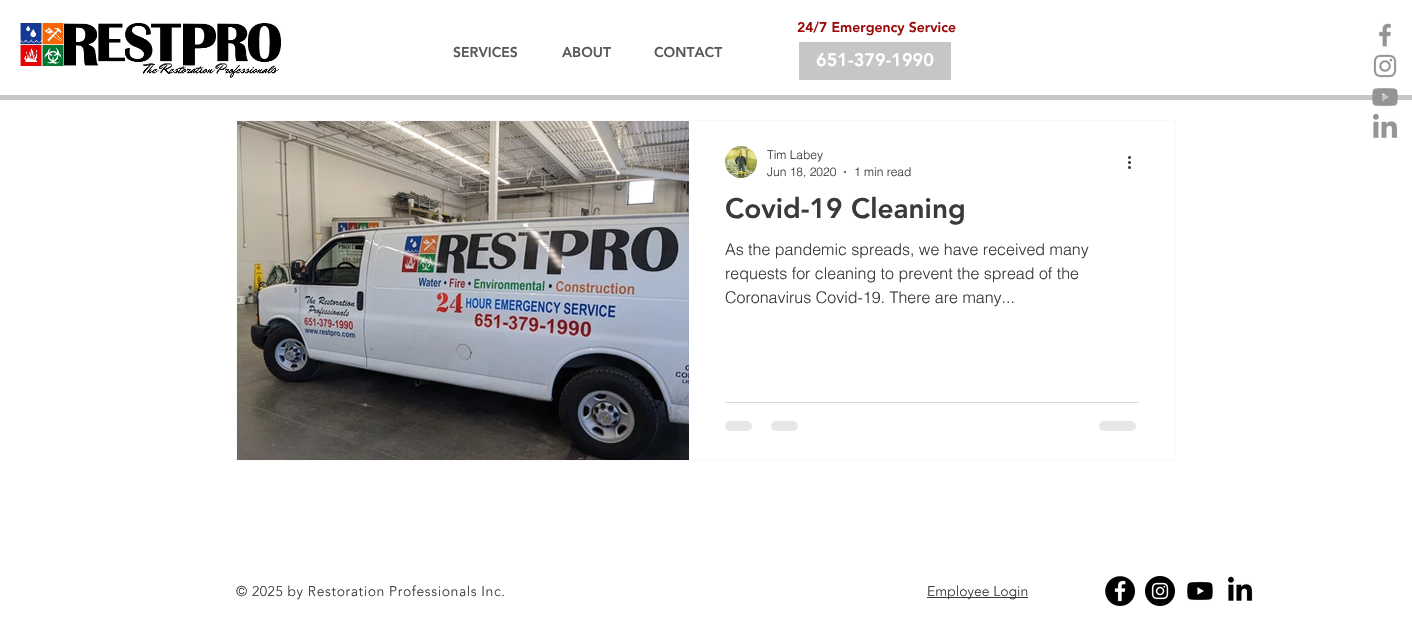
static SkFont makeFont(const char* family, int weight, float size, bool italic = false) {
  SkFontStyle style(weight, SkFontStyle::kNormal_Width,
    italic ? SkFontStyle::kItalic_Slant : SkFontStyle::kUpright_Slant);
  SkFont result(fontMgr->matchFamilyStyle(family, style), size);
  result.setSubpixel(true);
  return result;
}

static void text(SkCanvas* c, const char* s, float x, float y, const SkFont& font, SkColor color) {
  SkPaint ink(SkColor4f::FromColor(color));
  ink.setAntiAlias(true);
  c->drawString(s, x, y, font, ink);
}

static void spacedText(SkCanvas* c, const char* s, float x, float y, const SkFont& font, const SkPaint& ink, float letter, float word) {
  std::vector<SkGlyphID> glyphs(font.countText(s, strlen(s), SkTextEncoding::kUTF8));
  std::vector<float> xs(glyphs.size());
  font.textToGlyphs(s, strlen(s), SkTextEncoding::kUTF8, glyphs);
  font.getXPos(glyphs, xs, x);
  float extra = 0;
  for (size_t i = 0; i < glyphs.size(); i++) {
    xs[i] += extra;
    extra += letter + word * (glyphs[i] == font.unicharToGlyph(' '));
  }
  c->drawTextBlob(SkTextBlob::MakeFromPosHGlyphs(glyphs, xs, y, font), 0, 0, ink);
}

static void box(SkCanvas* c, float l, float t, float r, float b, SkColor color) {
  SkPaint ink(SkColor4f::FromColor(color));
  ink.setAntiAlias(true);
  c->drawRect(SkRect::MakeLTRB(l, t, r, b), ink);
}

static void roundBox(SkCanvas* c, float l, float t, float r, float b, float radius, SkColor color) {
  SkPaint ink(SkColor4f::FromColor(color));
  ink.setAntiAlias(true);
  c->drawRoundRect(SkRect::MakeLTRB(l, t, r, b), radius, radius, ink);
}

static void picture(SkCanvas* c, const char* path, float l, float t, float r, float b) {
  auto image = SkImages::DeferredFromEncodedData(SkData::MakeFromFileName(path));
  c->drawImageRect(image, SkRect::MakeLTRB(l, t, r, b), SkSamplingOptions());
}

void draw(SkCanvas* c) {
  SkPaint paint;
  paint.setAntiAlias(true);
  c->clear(0xffffffff);
  picture(c, "img_01.png", 20, 22, 281, 78);
  SkFont face1 = makeFont("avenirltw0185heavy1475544", 900, 14);
  text(c, "SERVICES", 453, 57, face1, 0xff595959);
  text(c, "ABOUT", 562, 57, face1, 0xff595959);
  text(c, "CONTACT", 654, 57, face1, 0xff595959);
  text(c, "24/7 Emergency Service", 797, 32, face1, 0xff9b0909);
  box(c, 799, 42, 951, 80, 0xffc6c6c6);
  SkFont face2 = makeFont("avenirltw0185heavy1475544", 900, 18);
  text(c, "651-379-1990", 816, 66, face2, 0xffffffff);
  box(c, 0, 95, 1412, 100, 0xffc6c6c6);
  picture(c, "img_02.png", 1379, 23, 1391, 47);
  picture(c, "img_03.png", 1373, 54, 1397, 78);
  picture(c, "img_04.png", 1372, 88, 1398, 107);
  picture(c, "img_05.png", 1373, 113, 1398, 138);
  paint.setStyle(SkPaint::kStroke_Style);
  paint.setStrokeWidth(1);
  paint.setColor(0xfff9f9f9);
  c->drawRect(SkRect::MakeLTRB(236.5f, 120.5f, 1175.5f, 460.5f), paint);
  picture(c, "img_06.png", 237, 121, 689, 460);
  picture(c, "img_07.png", 725, 146, 757, 178);
  SkFont face3 = makeFont("helvetica", 300, 12);
  text(c, "Tim Labey", 767, 159, face3, 0xff3b3a3a);
  text(c, "Jun 18, 2020", 767, 176, face3, 0xff3b3a3a);
  paint.setStyle(SkPaint::kFill_Style);
  paint.setColor(0xff3b3a3a);
  c->drawCircle(845, 172, 1, paint);
  text(c, "1 min read", 854, 176, face3, 0xff3b3a3a);
  picture(c, "img_08.png", 1128, 156, 1131, 169);
  SkFont face4 = makeFont("avenirltw0185heavy1475544", 900, 28);
  text(c, "Covid-19 Cleaning", 725, 218, face4, 0xff3b3a3a);
  SkFont face5 = makeFont("helvetica", 300, 16);
  text(c, "As the pandemic spreads, we have received many", 725, 255, face5, 0xff3b3a3a);
  text(c, "requests for cleaning to prevent the spread of the", 725, 279, face5, 0xff3b3a3a);
  text(c, "Coronavirus Covid-19. There are many...", 725, 303, face5, 0xff3b3a3a);
  box(c, 725, 402, 1139, 403, 0xffd8d8d8);
  roundBox(c, 725, 421, 752, 431, 5, 0xffe7e7e7);
  roundBox(c, 771, 421, 798, 431, 5, 0xffe7e7e7);
  roundBox(c, 1099, 421, 1136, 431, 5, 0xffe7e7e7);
  SkFont face6 = makeFont("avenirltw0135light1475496", 300, 14);
  spacedText(c, "© 2025 by Restoration Professionals Inc.", 236, 596, face6, paint, 0.55f, 0);
  box(c, 927, 597, 1028, 598, 0xff3b3a3a);
  text(c, "Employee Login", 927, 596, face6, 0xff3b3a3a);
  picture(c, "img_09.png", 1105, 576, 1135, 606);
  picture(c, "img_10.png", 1145, 576, 1175, 606);
  picture(c, "img_11.png", 1187, 581, 1213, 601);
  picture(c, "img_12.png", 1227, 576, 1253, 601);
}
